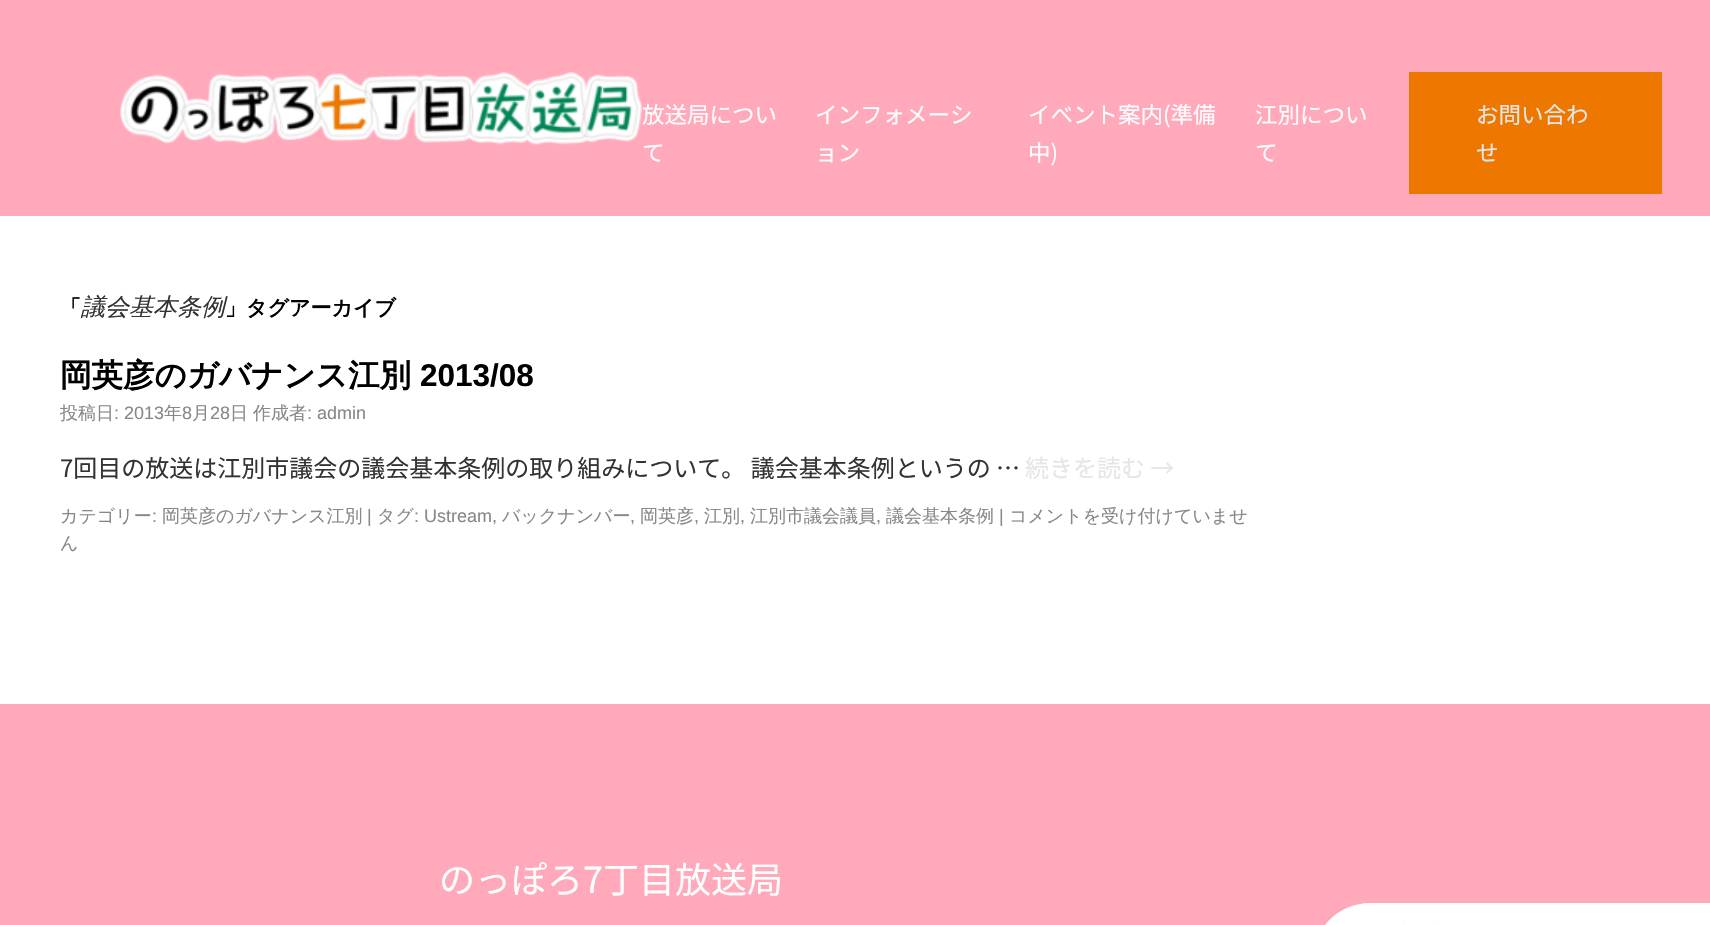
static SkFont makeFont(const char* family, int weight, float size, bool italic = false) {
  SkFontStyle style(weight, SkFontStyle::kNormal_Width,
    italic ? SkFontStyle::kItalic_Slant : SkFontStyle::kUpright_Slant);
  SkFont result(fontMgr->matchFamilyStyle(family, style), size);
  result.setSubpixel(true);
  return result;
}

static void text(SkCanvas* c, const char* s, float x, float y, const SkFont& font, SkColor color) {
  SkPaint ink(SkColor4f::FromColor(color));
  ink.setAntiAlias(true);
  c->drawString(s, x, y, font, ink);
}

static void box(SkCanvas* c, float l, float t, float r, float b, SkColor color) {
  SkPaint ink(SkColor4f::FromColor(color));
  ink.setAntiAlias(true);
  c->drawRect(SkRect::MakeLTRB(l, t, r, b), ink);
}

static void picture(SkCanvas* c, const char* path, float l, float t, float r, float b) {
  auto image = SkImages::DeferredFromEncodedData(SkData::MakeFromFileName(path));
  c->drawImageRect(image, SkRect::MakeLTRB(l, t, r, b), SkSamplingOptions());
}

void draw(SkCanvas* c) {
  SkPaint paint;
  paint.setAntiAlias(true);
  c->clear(0xffffa9bb);
  picture(c, "img_01.png", 120, 72, 642, 145);
  SkFont face1 = makeFont("Noto Sans JP", 400, 22.5f);
  text(c, "放送局につい", 642, 123, face1, 0xffffffff);
  text(c, "て", 642, 161, face1, 0xffffffff);
  text(c, "インフォメーシ", 815, 123, face1, 0xffffffff);
  text(c, "ョン", 815, 161, face1, 0xffffffff);
  text(c, "イベント案内(準備", 1028, 123, face1, 0xffffffff);
  text(c, "中)", 1028, 161, face1, 0xffffffff);
  text(c, "江別につい", 1255, 123, face1, 0xffffffff);
  text(c, "て", 1255, 161, face1, 0xffffffff);
  box(c, 1409, 72, 1662, 194, 0xffee7700);
  text(c, "お問い合わ", 1476, 123, face1, 0xffe6e6e6);
  text(c, "せ", 1476, 161, face1, 0xffe6e6e6);
  box(c, 0, 216, 1710, 704, 0xffffffff);
  SkFont face2 = makeFont("WenQuanYi Zen Hei", 700, 21);
  text(c, "「", 60, 315, face2, 0xff000000);
  SkFont face3 = makeFont("WenQuanYi Zen Hei", 500, 24, true);
  text(c, "議会基本条例", 81, 315, face3, 0xff333333);
  text(c, "」タグアーカイブ", 225, 315, face2, 0xff000000);
  SkFont face4 = makeFont("WenQuanYi Zen Hei", 700, 31.5f);
  text(c, "岡英彦のガバナンス江別", 60, 386, face4, 0xff000000);
  SkFont face5 = makeFont("Liberation Sans", 700, 31.5f);
  text(c, "2013/08", 420, 386, face5, 0xff000000);
  SkFont face6 = makeFont("WenQuanYi Zen Hei", 500, 18);
  text(c, "投稿日", 60, 419, face6, 0xff888888);
  SkFont face7 = makeFont("Liberation Sans", 400, 18);
  text(c, ": 2013", 114, 419, face7, 0xff888888);
  text(c, "年", 164, 419, face6, 0xff888888);
  text(c, "8", 182, 419, face7, 0xff888888);
  text(c, "月", 192, 419, face6, 0xff888888);
  text(c, "28", 210, 419, face7, 0xff888888);
  text(c, "日", 230, 419, face6, 0xff888888);
  text(c, "作成者", 253, 419, face6, 0xff888888);
  text(c, ": admin", 307, 419, face7, 0xff888888);
  SkFont face8 = makeFont("Noto Sans JP", 400, 24);
  text(c, "7回目の放送は江別市議会の議会基本条例の取り組みについて。 議会基本条例というの …", 60, 477, face8, 0xff333333);
  text(c, "続きを読む →", 1025, 477, face8, 0xffe6e6e6);
  text(c, "カテゴリー", 60, 522, face6, 0xff888888);
  text(c, ":", 152, 522, face7, 0xff888888);
  text(c, "岡英彦のガバナンス江別", 162, 522, face6, 0xff888888);
  text(c, "|", 367, 522, face7, 0xff888888);
  text(c, "タグ", 377, 522, face6, 0xff888888);
  text(c, ": Ustream,", 414, 522, face7, 0xff888888);
  text(c, "バックナンバー", 502, 522, face6, 0xff888888);
  text(c, "岡英彦", 640, 522, face6, 0xff888888);
  text(c, "江別", 704, 522, face6, 0xff888888);
  text(c, "江別市議会議員", 750, 522, face6, 0xff888888);
  text(c, "議会基本条例", 886, 522, face6, 0xff888888);
  text(c, "|", 999, 522, face7, 0xff888888);
  text(c, "コメントを受け付けていませ", 1009, 522, face6, 0xff888888);
  text(c, ",", 630, 522, face7, 0xff888888);
  text(c, ",", 694, 522, face7, 0xff888888);
  text(c, ",", 740, 522, face7, 0xff888888);
  text(c, ",", 876, 522, face7, 0xff888888);
  text(c, "ん", 60, 549, face6, 0xff888888);
  SkFont face9 = makeFont("Noto Sans JP", 400, 36);
  text(c, "のっぽろ7丁目放送局", 439, 893, face9, 0xffffffff);
  picture(c, "img_02.png", 1324, 903, 1710, 925);
}
